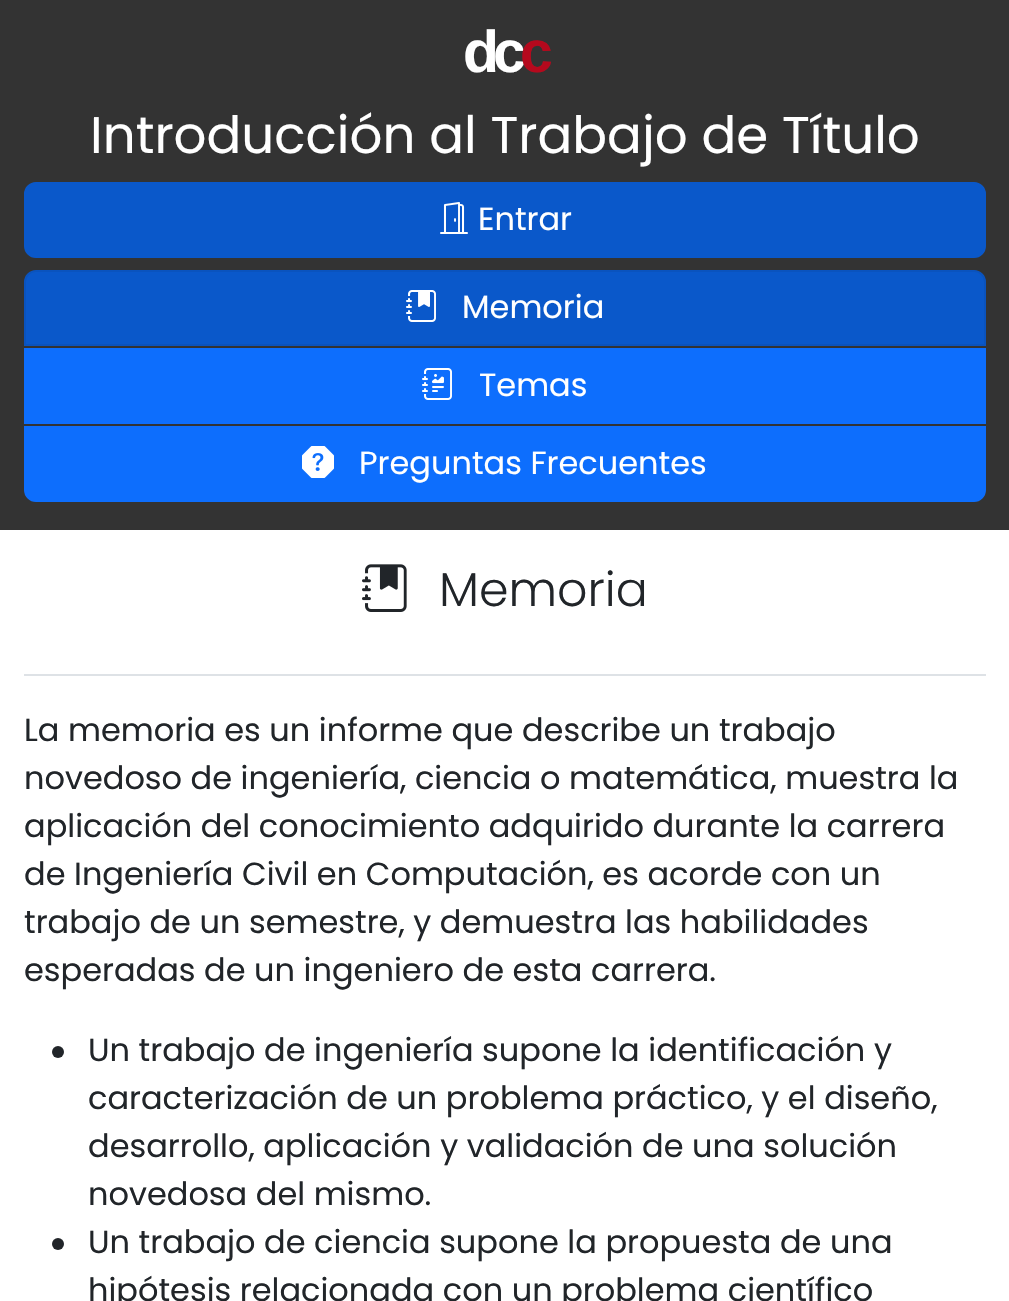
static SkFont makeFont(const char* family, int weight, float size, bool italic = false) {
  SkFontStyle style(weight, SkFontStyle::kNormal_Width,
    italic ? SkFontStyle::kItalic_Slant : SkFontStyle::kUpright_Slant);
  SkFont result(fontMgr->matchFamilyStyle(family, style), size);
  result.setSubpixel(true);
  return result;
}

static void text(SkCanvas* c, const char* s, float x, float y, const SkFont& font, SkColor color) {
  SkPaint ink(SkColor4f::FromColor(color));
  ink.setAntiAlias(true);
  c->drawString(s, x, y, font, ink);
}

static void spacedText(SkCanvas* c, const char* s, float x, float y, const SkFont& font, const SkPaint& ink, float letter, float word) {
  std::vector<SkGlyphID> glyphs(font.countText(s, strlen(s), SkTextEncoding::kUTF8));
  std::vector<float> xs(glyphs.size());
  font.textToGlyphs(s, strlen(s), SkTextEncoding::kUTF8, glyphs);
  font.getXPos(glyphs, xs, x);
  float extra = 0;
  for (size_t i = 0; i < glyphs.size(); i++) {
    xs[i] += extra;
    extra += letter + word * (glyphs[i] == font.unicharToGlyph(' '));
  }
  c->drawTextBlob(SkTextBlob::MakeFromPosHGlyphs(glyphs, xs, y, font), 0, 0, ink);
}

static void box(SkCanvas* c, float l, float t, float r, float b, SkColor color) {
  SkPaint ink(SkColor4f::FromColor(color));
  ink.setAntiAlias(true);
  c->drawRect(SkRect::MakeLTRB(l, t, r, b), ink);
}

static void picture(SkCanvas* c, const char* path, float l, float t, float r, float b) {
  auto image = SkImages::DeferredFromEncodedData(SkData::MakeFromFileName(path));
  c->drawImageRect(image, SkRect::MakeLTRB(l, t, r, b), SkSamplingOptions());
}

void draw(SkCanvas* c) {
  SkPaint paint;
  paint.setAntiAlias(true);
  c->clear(0xffffffff);
  box(c, 0, 0, 1009, 530, 0xff333333);
  SkFont face1 = makeFont("Liberation Sans", 700, 59);
  paint.setColor(0xffffffff);
  spacedText(c, "dc", 463, 72, face1, paint, -6, 0);
  paint.setColor(0xffb5091d);
  spacedText(c, "c", 520, 72, face1, paint, -6, 0);
  SkFont face2 = makeFont("Poppins", 400, 51.5f);
  text(c, "Introducción al Trabajo de Título", 90, 153, face2, 0xffffffff);
  paint.setColor(0xff0a58ca);
  c->drawRoundRect(SkRect::MakeLTRB(25, 183, 985, 257), 11, 11, paint);
  paint.setStyle(SkPaint::kStroke_Style);
  paint.setStrokeWidth(2);
  c->drawRoundRect(SkRect::MakeLTRB(25, 183, 985, 257), 11, 11, paint);
  picture(c, "img_01.png", 440, 202, 468, 234);
  SkFont face3 = makeFont("Poppins", 400, 32);
  text(c, "Entrar", 478, 230, face3, 0xffffffff);
  paint.setStyle(SkPaint::kFill_Style);
  c->drawPath(SkPathBuilder().moveTo(36, 271).lineTo(974, 271).cubicTo(980, 271, 985, 276, 985, 282).lineTo(985, 345).lineTo(25, 345).lineTo(25, 282).cubicTo(25, 276, 30, 271, 36, 271).close().detach(), paint);
  paint.setStyle(SkPaint::kStroke_Style);
  paint.setColor(0xff0a53be);
  c->drawPath(SkPathBuilder().moveTo(36, 271).lineTo(974, 271).cubicTo(980, 271, 985, 276, 985, 282).lineTo(985, 345).lineTo(25, 345).lineTo(25, 282).cubicTo(25, 276, 30, 271, 36, 271).close().detach(), paint);
  picture(c, "img_02.png", 406, 290, 436, 322);
  text(c, "Memoria", 462, 318, face3, 0xffffffff);
  box(c, 24, 348, 986, 424, 0xff0d6efd);
  picture(c, "img_03.png", 422, 368, 452, 400);
  text(c, "Temas", 479, 396, face3, 0xffffffff);
  paint.setStyle(SkPaint::kFill_Style);
  paint.setColor(0xff0d6efd);
  c->drawPath(SkPathBuilder().moveTo(25, 427).lineTo(985, 427).lineTo(985, 490).cubicTo(985, 496, 980, 501, 974, 501).lineTo(36, 501).cubicTo(30, 501, 25, 496, 25, 490).close().detach(), paint);
  paint.setStyle(SkPaint::kStroke_Style);
  c->drawPath(SkPathBuilder().moveTo(25, 427).lineTo(985, 427).lineTo(985, 490).cubicTo(985, 496, 980, 501, 974, 501).lineTo(36, 501).cubicTo(30, 501, 25, 496, 25, 490).close().detach(), paint);
  picture(c, "img_04.png", 302, 446, 334, 478);
  text(c, "Preguntas Frecuentes", 359, 474, face3, 0xffffffff);
  box(c, 24, 674, 986, 676, 0xffdee2e6);
  picture(c, "img_05.png", 362, 564, 407, 612);
  SkFont face4 = makeFont("Poppins", 300, 47.5f);
  text(c, "Memoria", 439, 606, face4, 0xff212529);
  text(c, "La memoria es un informe que describe un trabajo", 24, 741, face3, 0xff212529);
  text(c, "novedoso de ingeniería, ciencia o matemática, muestra la", 24, 789, face3, 0xff212529);
  text(c, "aplicación del conocimiento adquirido durante la carrera", 24, 837, face3, 0xff212529);
  text(c, "de Ingeniería Civil en Computación, es acorde con un", 24, 885, face3, 0xff212529);
  text(c, "trabajo de un semestre, y demuestra las habilidades", 24, 933, face3, 0xff212529);
  text(c, "esperadas de un ingeniero de esta carrera.", 24, 981, face3, 0xff212529);
  paint.setStyle(SkPaint::kFill_Style);
  paint.setColor(0xff212529);
  c->drawCircle(58, 1052, 6, paint);
  text(c, "Un trabajo de ingeniería supone la identificación y", 88, 1061, face3, 0xff212529);
  text(c, "caracterización de un problema práctico, y el diseño,", 88, 1109, face3, 0xff212529);
  text(c, "desarrollo, aplicación y validación de una solución", 88, 1157, face3, 0xff212529);
  text(c, "novedosa del mismo.", 88, 1205, face3, 0xff212529);
  c->drawCircle(58, 1244, 6, paint);
  text(c, "Un trabajo de ciencia supone la propuesta de una", 88, 1253, face3, 0xff212529);
  text(c, "hipótesis relacionada con un problema científico", 88, 1301, face3, 0xff212529);
}
